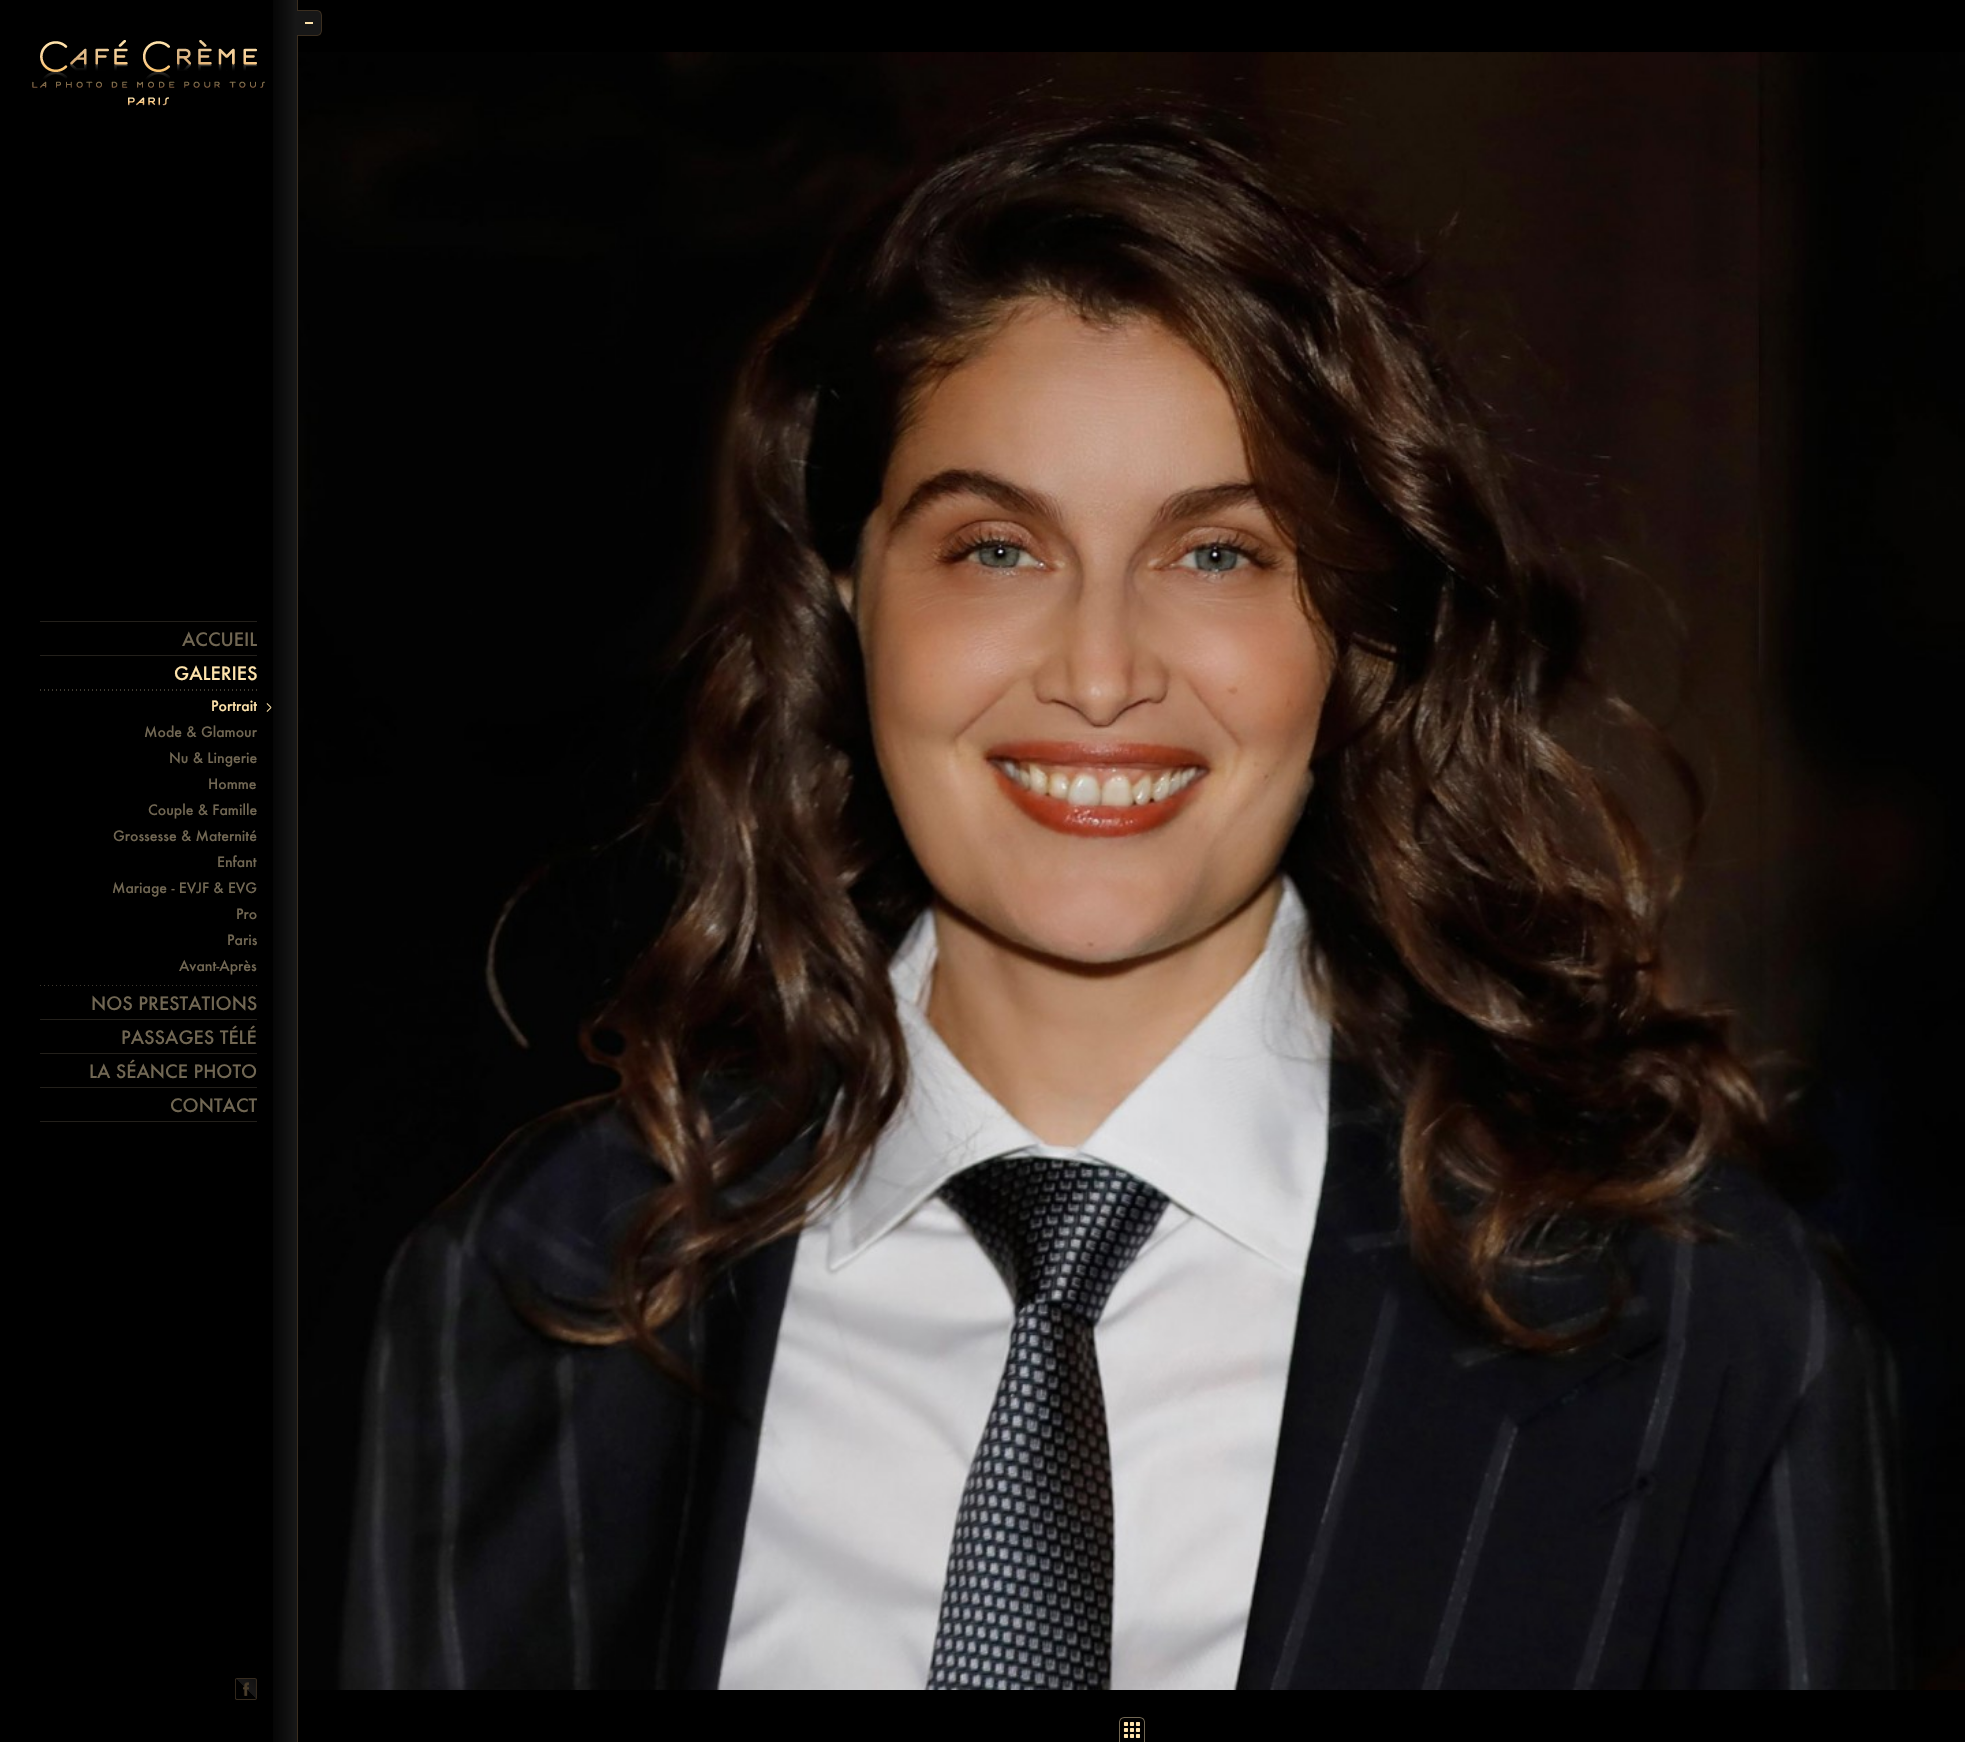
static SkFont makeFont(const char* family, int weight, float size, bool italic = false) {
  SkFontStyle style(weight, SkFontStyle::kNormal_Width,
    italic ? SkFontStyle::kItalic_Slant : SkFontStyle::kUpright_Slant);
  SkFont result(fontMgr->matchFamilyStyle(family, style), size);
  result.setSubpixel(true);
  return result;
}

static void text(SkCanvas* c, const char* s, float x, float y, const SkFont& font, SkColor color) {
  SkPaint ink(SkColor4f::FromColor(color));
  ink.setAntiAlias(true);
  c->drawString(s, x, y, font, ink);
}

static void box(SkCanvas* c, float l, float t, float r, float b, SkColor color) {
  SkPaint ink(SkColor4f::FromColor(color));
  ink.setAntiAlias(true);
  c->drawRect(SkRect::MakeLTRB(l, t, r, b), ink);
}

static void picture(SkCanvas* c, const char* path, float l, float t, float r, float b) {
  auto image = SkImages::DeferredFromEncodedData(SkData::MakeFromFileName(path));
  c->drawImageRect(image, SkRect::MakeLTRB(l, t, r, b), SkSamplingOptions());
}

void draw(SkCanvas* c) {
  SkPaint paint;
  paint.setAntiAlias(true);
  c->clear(0xff000000);
  picture(c, "img_01.png", 273, 0, 297, 1742);
  box(c, 297, 0, 298, 1742, 0xff3b2e1f);
  picture(c, "img_02.png", 297, 10, 322, 36);
  picture(c, "img_03.png", 32, 40, 265, 106);
  box(c, 40, 621, 257, 622, 0xff23201b);
  box(c, 40, 655, 257, 656, 0xff23201b);
  SkFont face1 = makeFont("Futura", 500, 18);
  text(c, "ACCUEIL", 182, 646, face1, 0xff716753);
  picture(c, "img_04.png", 40, 985, 257, 986);
  text(c, "GALERIES", 174, 680, face1, 0xffffe4ac);
  picture(c, "img_05.png", 40, 689, 257, 691);
  picture(c, "img_06.png", 266, 703, 272, 712);
  SkFont face2 = makeFont("Futura", 500, 14);
  text(c, "Portrait", 211, 711, face2, 0xffffe4ac);
  text(c, "Mode & Glamour", 144, 737, face2, 0xff716753);
  text(c, "Nu & Lingerie", 169, 763, face2, 0xff716753);
  text(c, "Homme", 208, 789, face2, 0xff716753);
  text(c, "Couple & Famille", 148, 815, face2, 0xff716753);
  text(c, "Grossesse & Maternité", 113, 841, face2, 0xff716753);
  text(c, "Enfant", 217, 867, face2, 0xff716753);
  text(c, "Mariage - EVJF & EVG", 112, 893, face2, 0xff716753);
  text(c, "Pro", 236, 919, face2, 0xff716753);
  text(c, "Paris", 227, 945, face2, 0xff716753);
  text(c, "Avant-Après", 179, 971, face2, 0xff716753);
  box(c, 40, 1019, 257, 1020, 0xff23201b);
  text(c, "NOS PRESTATIONS", 91, 1010, face1, 0xff716753);
  box(c, 40, 1053, 257, 1054, 0xff23201b);
  text(c, "PASSAGES TÉLÉ", 121, 1044, face1, 0xff716753);
  box(c, 40, 1087, 257, 1088, 0xff23201b);
  text(c, "LA SÉANCE PHOTO", 89, 1078, face1, 0xff716753);
  box(c, 40, 1121, 257, 1122, 0xff23201b);
  text(c, "CONTACT", 170, 1112, face1, 0xff716753);
  picture(c, "img_07.png", 235, 1678, 257, 1700);
  picture(c, "img_08.png", 298, 52, 1965, 1690);
  picture(c, "img_09.png", 1119, 1717, 1145, 1742);
}
